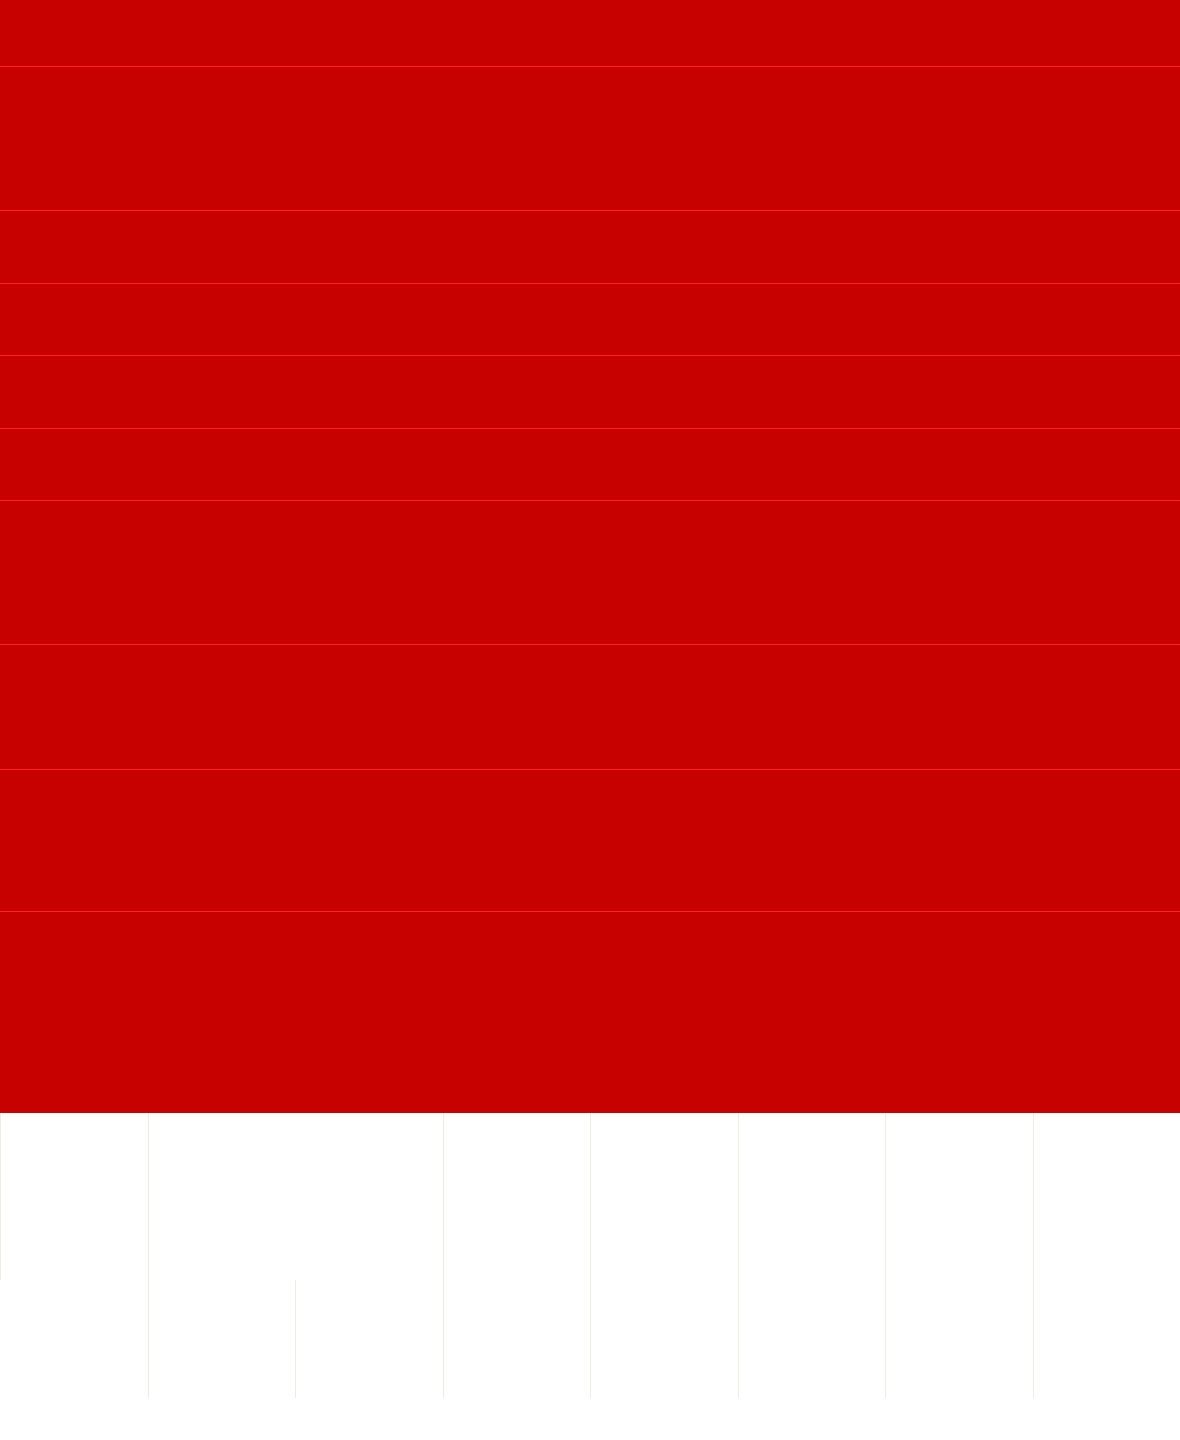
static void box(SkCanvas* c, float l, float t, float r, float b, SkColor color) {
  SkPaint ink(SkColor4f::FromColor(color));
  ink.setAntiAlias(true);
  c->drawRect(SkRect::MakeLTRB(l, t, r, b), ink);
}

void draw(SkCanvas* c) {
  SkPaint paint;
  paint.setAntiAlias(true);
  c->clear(0xffffffff);
  box(c, 0, 0, 1180, 1113, 0xffc70000);
  box(c, 0, 66, 1180, 67, 0xffff2222);
  box(c, 0, 210, 1180, 211, 0xffff2222);
  box(c, 0, 283, 1180, 284, 0xffff2222);
  box(c, 0, 355, 1180, 356, 0xffff2222);
  box(c, 0, 428, 1180, 429, 0xffff2222);
  box(c, 0, 500, 1180, 501, 0xffff2222);
  box(c, 0, 644, 1180, 645, 0xffff2222);
  box(c, 0, 769, 1180, 770, 0xffff2222);
  box(c, 0, 911, 1180, 912, 0xffff2222);
  box(c, 0, 1113, 1, 1280, 0xffecece0);
  box(c, 148, 1113, 149, 1398, 0xffecece0);
  box(c, 443, 1113, 444, 1398, 0xffecece0);
  box(c, 590, 1113, 591, 1398, 0xffecece0);
  box(c, 738, 1113, 739, 1398, 0xffecece0);
  box(c, 885, 1113, 886, 1398, 0xffecece0);
  box(c, 1033, 1113, 1034, 1398, 0xffecece0);
  box(c, 295, 1280, 296, 1398, 0xffecece0);
}
